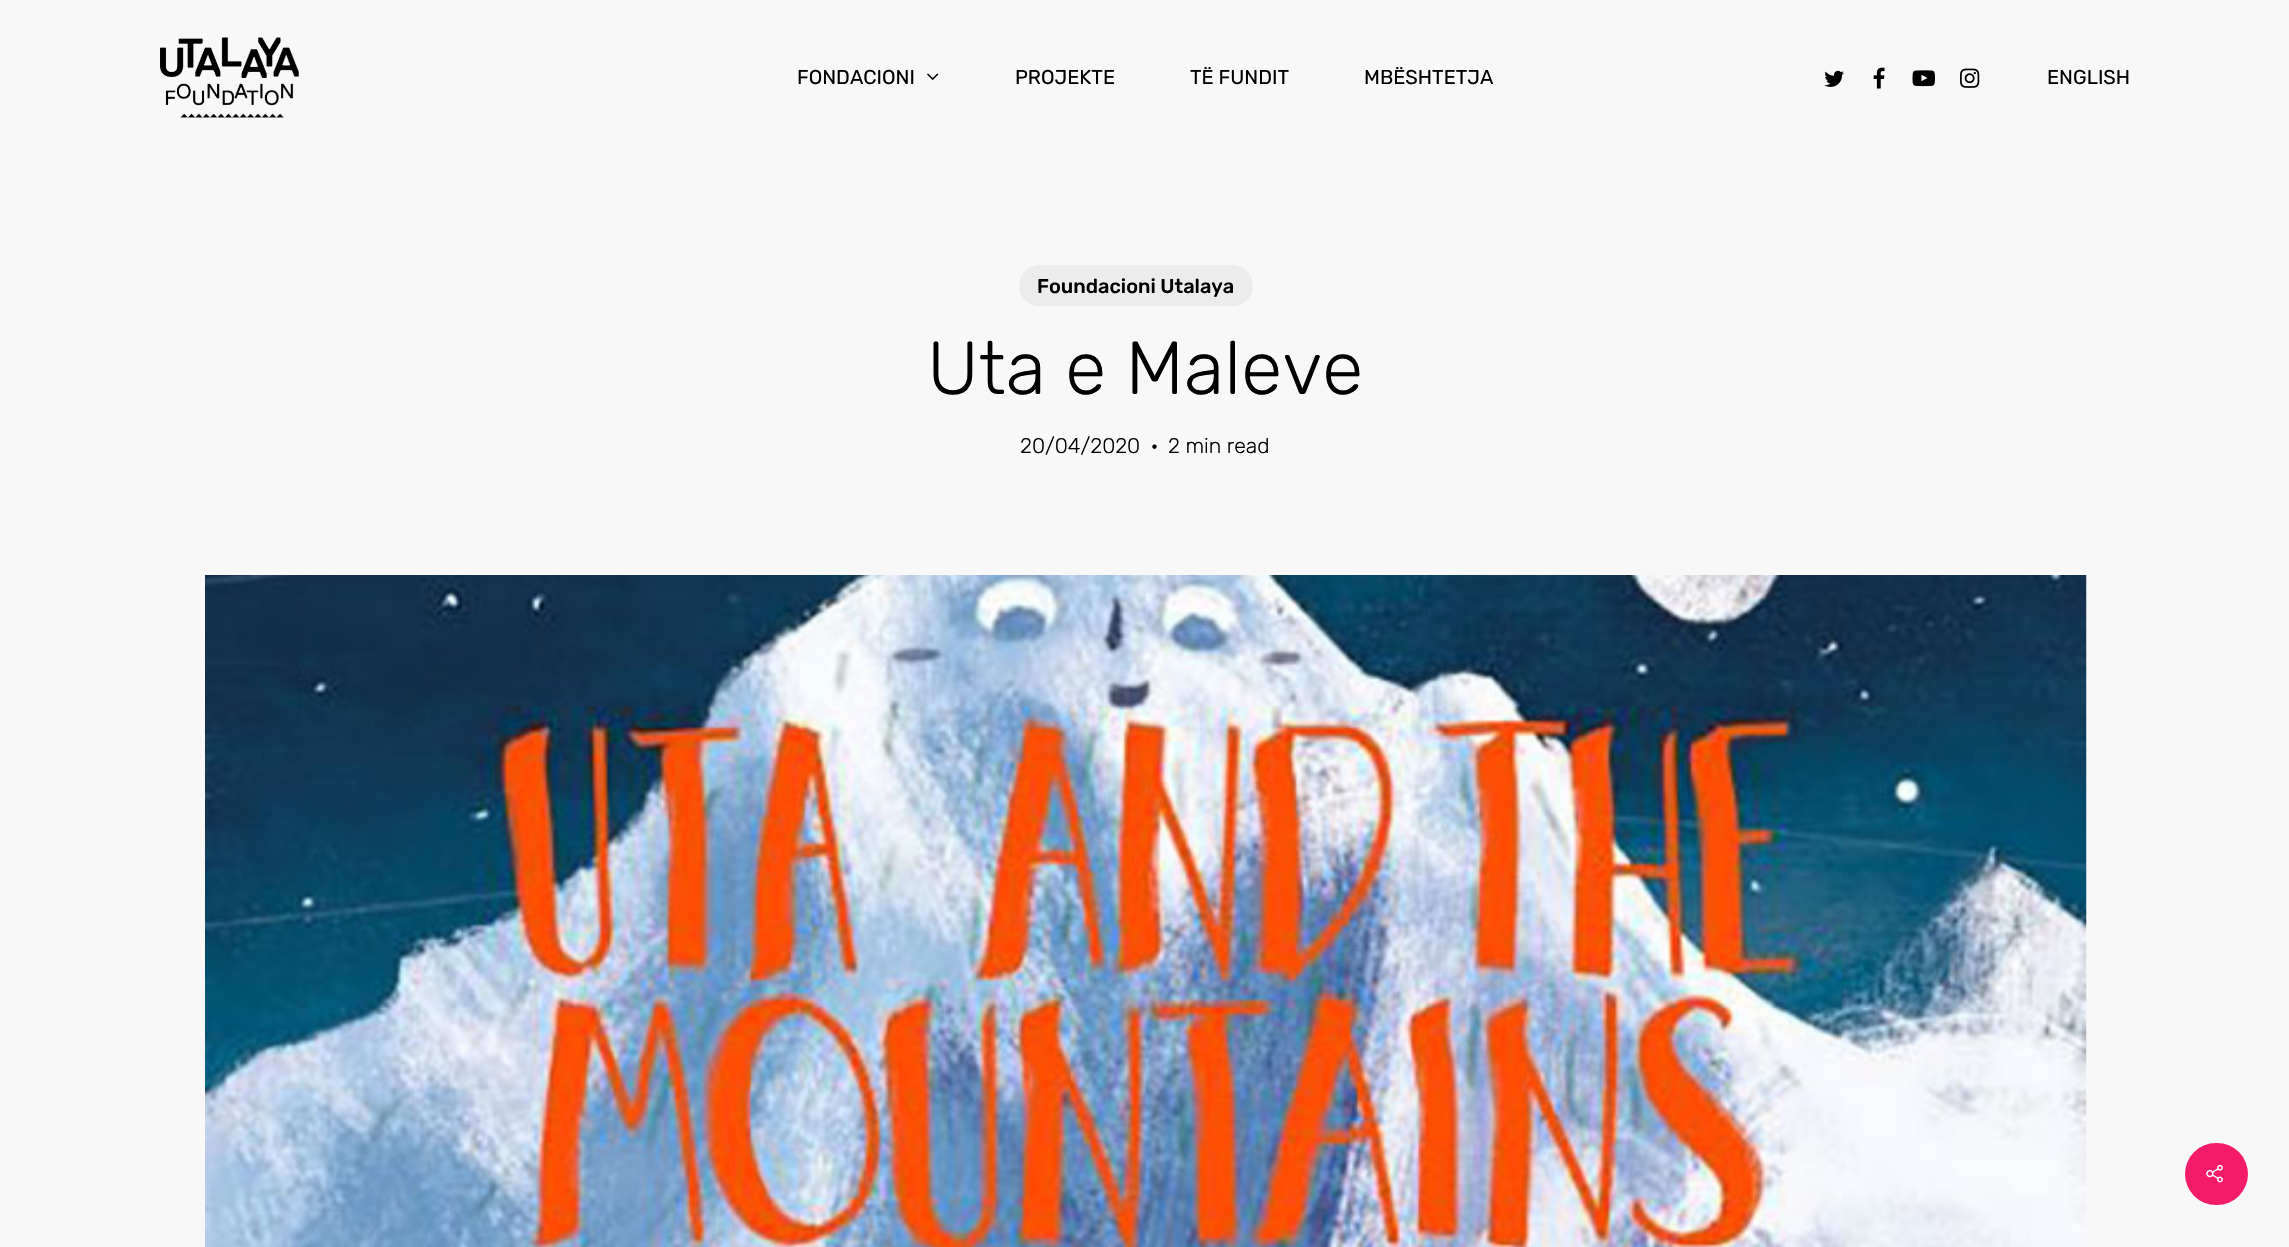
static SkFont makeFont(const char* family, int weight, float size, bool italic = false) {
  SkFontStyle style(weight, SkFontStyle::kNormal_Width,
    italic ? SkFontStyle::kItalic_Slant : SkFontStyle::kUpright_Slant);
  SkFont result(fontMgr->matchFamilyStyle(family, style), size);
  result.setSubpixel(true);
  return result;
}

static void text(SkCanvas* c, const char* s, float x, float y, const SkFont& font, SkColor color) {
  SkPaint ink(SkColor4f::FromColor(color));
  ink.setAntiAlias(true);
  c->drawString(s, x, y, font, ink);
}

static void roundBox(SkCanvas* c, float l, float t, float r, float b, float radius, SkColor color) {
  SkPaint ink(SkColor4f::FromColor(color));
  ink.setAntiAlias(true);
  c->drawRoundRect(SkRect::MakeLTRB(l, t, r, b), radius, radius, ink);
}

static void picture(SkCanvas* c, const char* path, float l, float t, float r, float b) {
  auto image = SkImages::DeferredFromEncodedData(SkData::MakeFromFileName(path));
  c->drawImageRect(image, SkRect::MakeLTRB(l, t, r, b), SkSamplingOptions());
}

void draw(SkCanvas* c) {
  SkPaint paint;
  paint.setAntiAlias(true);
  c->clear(0xfff8f8f8);
  picture(c, "img_01.png", 160, 37, 299, 118);
  SkFont face1 = makeFont("Rubik", 400, 20);
  text(c, "FONDACIONI", 797, 84, face1, 0xff000000);
  picture(c, "img_02.png", 927, 73, 939, 80);
  text(c, "PROJEKTE", 1015, 84, face1, 0xff000000);
  text(c, "TË FUNDIT", 1190, 84, face1, 0xff000000);
  text(c, "MBËSHTETJA", 1364, 84, face1, 0xff000000);
  picture(c, "img_03.png", 1824, 70, 1844, 87);
  picture(c, "img_04.png", 1873, 67, 1885, 89);
  picture(c, "img_05.png", 1912, 70, 1935, 87);
  picture(c, "img_06.png", 1960, 68, 1980, 88);
  text(c, "ENGLISH", 2047, 84, face1, 0xff000000);
  roundBox(c, 1019, 265, 1253, 306, 20.5f, 0xffececec);
  SkFont face2 = makeFont("Rubik", 500, 20);
  text(c, "Foundacioni Utalaya", 1037, 293, face2, 0xff000000);
  SkFont face3 = makeFont("Rubik", 300, 75);
  text(c, "Uta e Maleve", 927, 394, face3, 0xff000000);
  SkFont face4 = makeFont("Rubik", 300, 21.25f);
  text(c, "20/04/2020", 1020, 453, face4, 0xff000000);
  text(c, "·", 1151, 453, face4, 0xff000000);
  text(c, "2 min read", 1168, 453, face4, 0xff000000);
  picture(c, "img_07.png", 205, 575, 2087, 1247);
  roundBox(c, 2185, 1143, 2248, 1205, 31, 0xfff41b69);
  picture(c, "img_08.png", 2206, 1164, 2223, 1183);
}
